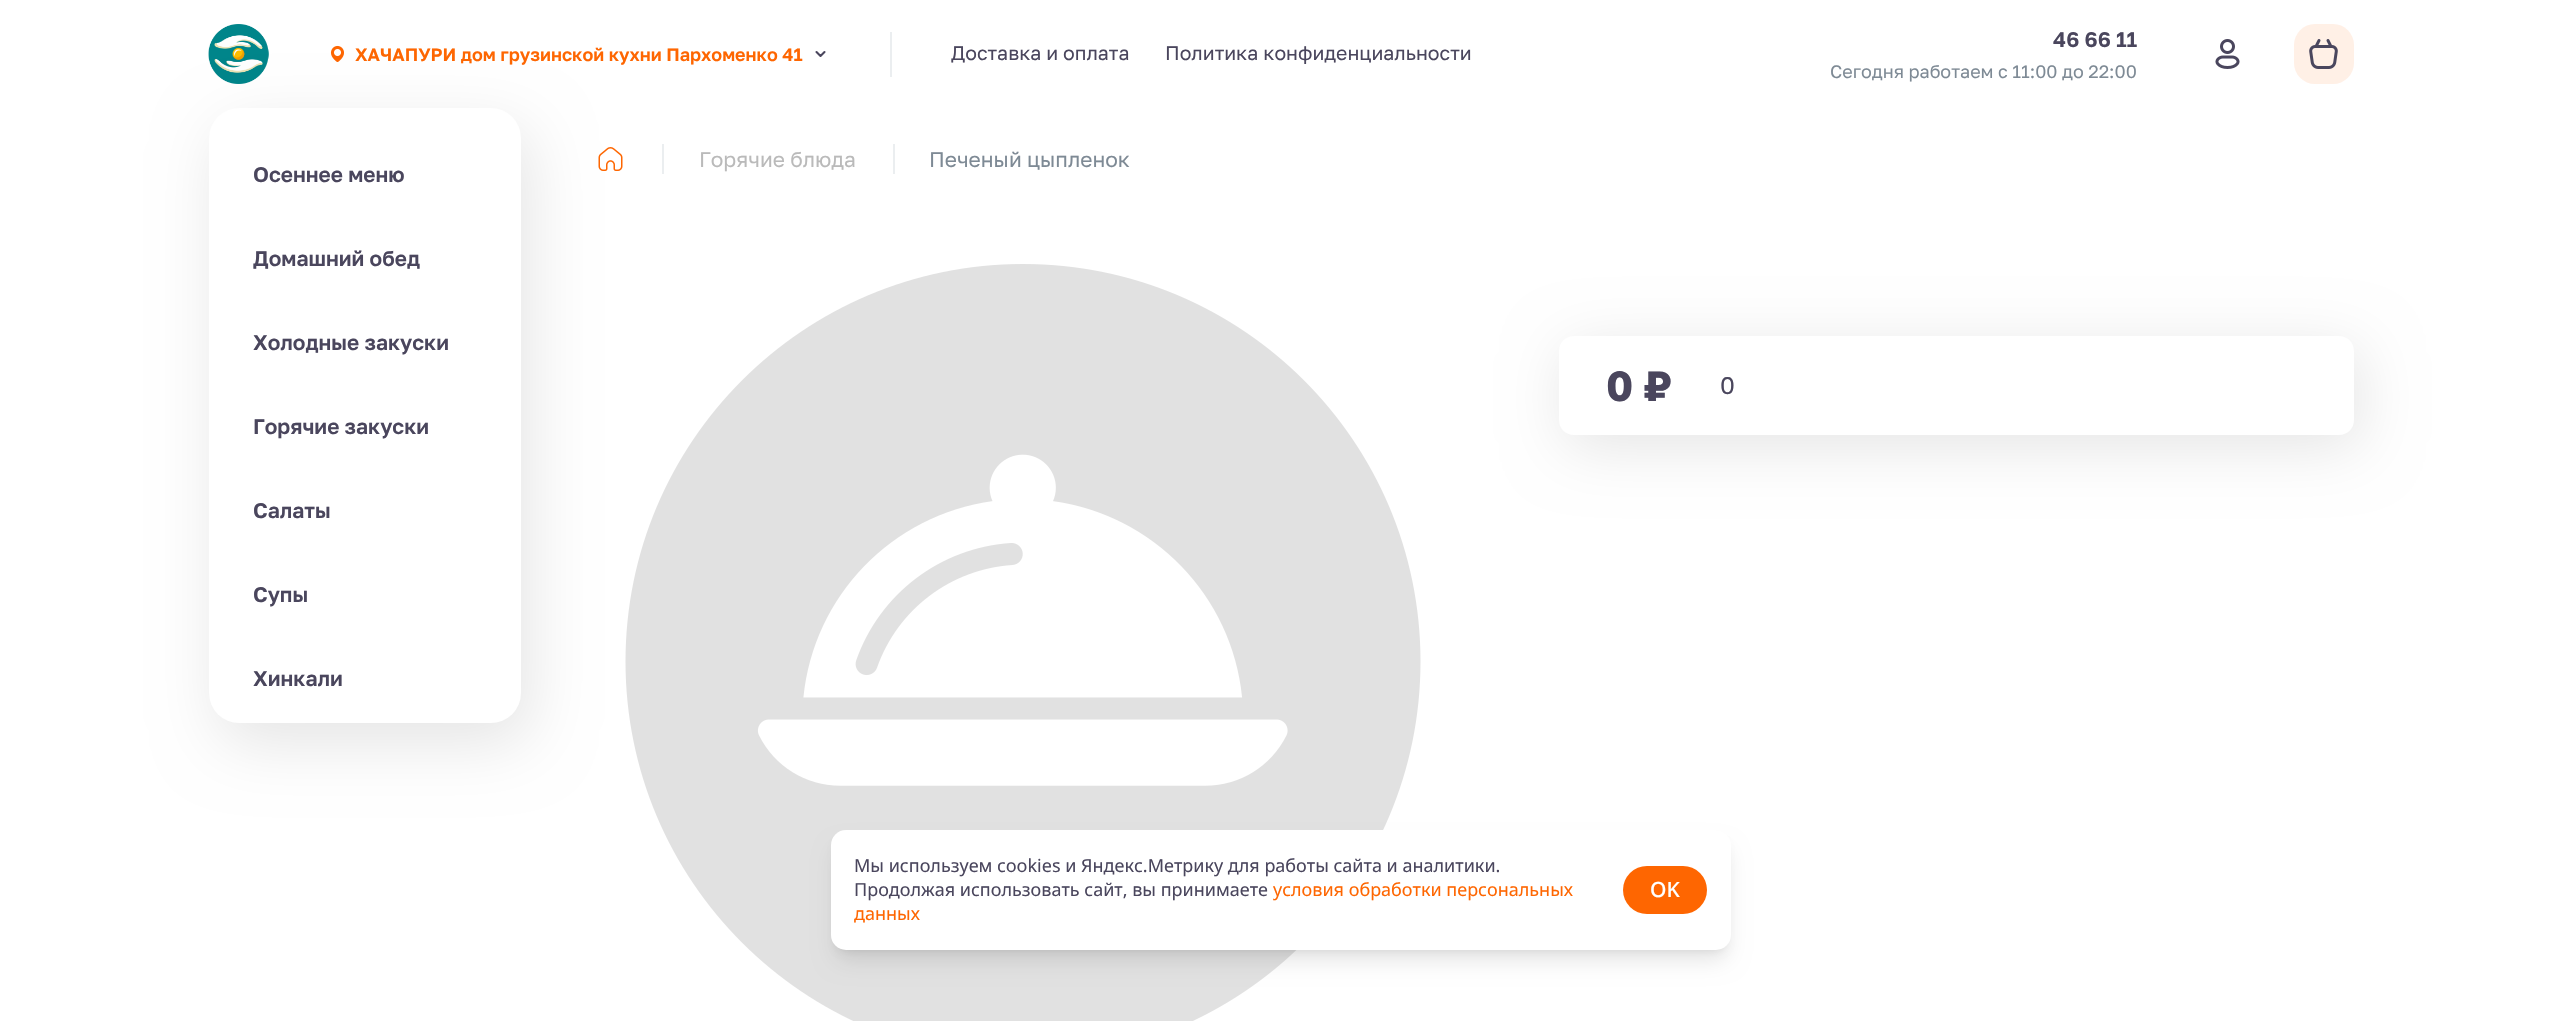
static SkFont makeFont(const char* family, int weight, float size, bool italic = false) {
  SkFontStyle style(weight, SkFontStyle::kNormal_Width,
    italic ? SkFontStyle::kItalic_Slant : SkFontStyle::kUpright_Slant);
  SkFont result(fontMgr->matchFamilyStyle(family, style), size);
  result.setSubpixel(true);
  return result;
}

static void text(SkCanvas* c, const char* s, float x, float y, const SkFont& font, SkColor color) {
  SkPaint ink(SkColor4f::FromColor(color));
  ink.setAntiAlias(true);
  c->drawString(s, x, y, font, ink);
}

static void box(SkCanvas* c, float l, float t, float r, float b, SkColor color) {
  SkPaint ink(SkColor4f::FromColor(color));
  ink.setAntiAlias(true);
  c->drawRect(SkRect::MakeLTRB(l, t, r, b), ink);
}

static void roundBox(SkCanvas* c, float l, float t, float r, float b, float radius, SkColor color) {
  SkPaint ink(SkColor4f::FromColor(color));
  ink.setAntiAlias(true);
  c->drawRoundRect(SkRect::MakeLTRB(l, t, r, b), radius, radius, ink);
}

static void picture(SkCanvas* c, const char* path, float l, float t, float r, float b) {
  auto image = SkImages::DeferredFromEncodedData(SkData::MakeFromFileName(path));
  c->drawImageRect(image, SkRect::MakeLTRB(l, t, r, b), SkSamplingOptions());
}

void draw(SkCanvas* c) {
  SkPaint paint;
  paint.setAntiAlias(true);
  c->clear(0xffffffff);
  picture(c, "img_01.png", 208, 24, 269, 84);
  picture(c, "img_02.png", 330, 45, 344, 62);
  SkFont face1 = makeFont("Golos Text", 600, 18);
  text(c, "ХАЧАПУРИ дом грузинской кухни Пархоменко 41", 355, 61, face1, 0xfffe6601);
  paint.setStyle(SkPaint::kStroke_Style);
  paint.setStrokeWidth(2.1f);
  paint.setStrokeCap(SkPaint::kRound_Cap);
  paint.setStrokeJoin(SkPaint::kRound_Join);
  paint.setColor(0xff4a465d);
  c->drawPath(SkPathBuilder().moveTo(816.5f, 52).lineTo(820.5f, 56).lineTo(824.5f, 52).detach(), paint);
  box(c, 890, 32, 892, 77, 0xffebeef0);
  SkFont face2 = makeFont("Golos Text", 400, 19.5f);
  text(c, "Доставка и оплата", 951, 60, face2, 0xff4a465d);
  text(c, "Политика конфиденциальности", 1165, 60, face2, 0xff4a465d);
  SkFont face3 = makeFont("Golos Text", 600, 21);
  text(c, "46 66 11", 2053, 47, face3, 0xff4a465d);
  SkFont face4 = makeFont("Golos Text", 400, 18);
  text(c, "Сегодня работаем с 11:00 до 22:00", 1830, 78, face4, 0xff7e8a95);
  picture(c, "img_03.png", 2215, 39, 2240, 69);
  roundBox(c, 2294, 24, 2354, 84, 21, 0xfffff0e6);
  picture(c, "img_04.png", 2309, 39, 2338, 69);
  picture(c, "img_05.png", 598, 147, 623, 171);
  picture(c, "img_06.png", 625, 264, 1421, 1021);
  paint.setStyle(SkPaint::kFill_Style);
  paint.setColor(0x1a000000);
  paint.setMaskFilter(SkMaskFilter::MakeBlur(kNormal_SkBlurStyle, 31.5f));
  c->drawRoundRect(SkRect::MakeLTRB(218, 128, 530, 743), 30, 30, paint);
  paint.setMaskFilter(nullptr);
  roundBox(c, 209, 108, 521, 723, 30, 0xffffffff);
  text(c, "Осеннее меню", 253, 182, face3, 0xff4a465d);
  text(c, "Домашний обед", 253, 266, face3, 0xff4a465d);
  text(c, "Холодные закуски", 253, 350, face3, 0xff4a465d);
  text(c, "Горячие закуски", 253, 434, face3, 0xff4a465d);
  text(c, "Салаты", 253, 518, face3, 0xff4a465d);
  text(c, "Супы", 253, 602, face3, 0xff4a465d);
  text(c, "Хинкали", 253, 686, face3, 0xff4a465d);
  box(c, 662, 144, 664, 174, 0xffebeef0);
  SkFont face5 = makeFont("Golos Text", 400, 21);
  text(c, "Горячие блюда", 699, 167, face5, 0xffbababa);
  box(c, 893, 144, 895, 174, 0xffebeef0);
  text(c, "Печеный цыпленок", 929, 167, face5, 0xff7e8a95);
  c->save();
  c->clipPath(SkPathBuilder(SkPathFillType::kEvenOdd).moveTo(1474, 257).lineTo(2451, 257).lineTo(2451, 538).lineTo(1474, 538).close().moveTo(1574, 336).lineTo(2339, 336).cubicTo(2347.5f, 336, 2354, 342.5f, 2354, 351).lineTo(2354, 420).cubicTo(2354, 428.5f, 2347.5f, 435, 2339, 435).lineTo(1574, 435).cubicTo(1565.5f, 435, 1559, 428.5f, 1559, 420).lineTo(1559, 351).cubicTo(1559, 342.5f, 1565.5f, 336, 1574, 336).close().detach(), true);
  paint.setMaskFilter(SkMaskFilter::MakeBlur(kNormal_SkBlurStyle, 30));
  c->drawRoundRect(SkRect::MakeLTRB(1565, 348, 2360, 447), 15, 15, paint);
  paint.setMaskFilter(nullptr);
  c->restore();
  SkFont face6 = makeFont("Golos Text", 700, 42);
  text(c, "0 ₽", 1606, 401, face6, 0xff4a465d);
  SkFont face7 = makeFont("Golos Text", 400, 24);
  text(c, "0", 1720, 394, face7, 0xff4a465d);
  paint.setMaskFilter(SkMaskFilter::MakeBlur(kNormal_SkBlurStyle, 4.5f));
  c->drawRoundRect(SkRect::MakeLTRB(837, 842, 1725, 950), 9, 9, paint);
  paint.setMaskFilter(nullptr);
  paint.setMaskFilter(SkMaskFilter::MakeBlur(kNormal_SkBlurStyle, 11));
  c->drawRoundRect(SkRect::MakeLTRB(836, 849, 1727, 960), 11, 11, paint);
  paint.setMaskFilter(nullptr);
  roundBox(c, 831, 830, 1731, 950, 15, 0xffffffff);
  SkFont face8 = makeFont("Noto Sans", 400, 18);
  text(c, "Мы используем cookies и Яндекс.Метрику для работы сайта и аналитики.", 854, 872, face8, 0xff4a465d);
  text(c, "Продолжая использовать сайт, вы принимаете", 854, 896, face8, 0xff4a465d);
  text(c, "условия обработки персональных", 1273, 896, face8, 0xfffe6601);
  text(c, "данных", 854, 920, face8, 0xfffe6601);
  roundBox(c, 1623, 866, 1707, 914, 24, 0xfffe6601);
  SkFont face9 = makeFont("Noto Sans", 500, 21);
  text(c, "OK", 1650, 897, face9, 0xffffffff);
}
